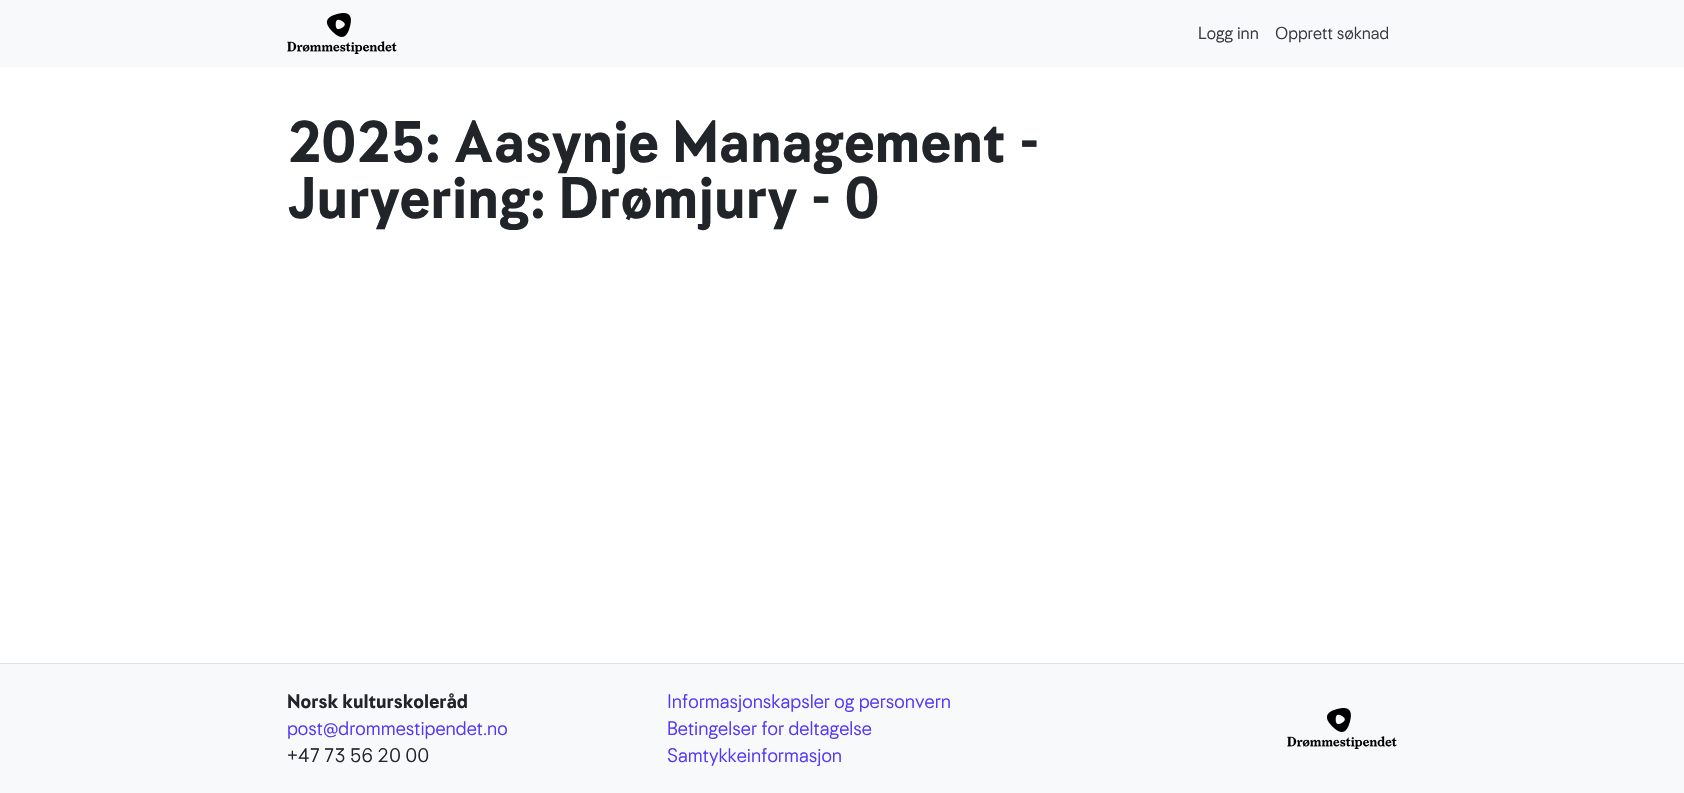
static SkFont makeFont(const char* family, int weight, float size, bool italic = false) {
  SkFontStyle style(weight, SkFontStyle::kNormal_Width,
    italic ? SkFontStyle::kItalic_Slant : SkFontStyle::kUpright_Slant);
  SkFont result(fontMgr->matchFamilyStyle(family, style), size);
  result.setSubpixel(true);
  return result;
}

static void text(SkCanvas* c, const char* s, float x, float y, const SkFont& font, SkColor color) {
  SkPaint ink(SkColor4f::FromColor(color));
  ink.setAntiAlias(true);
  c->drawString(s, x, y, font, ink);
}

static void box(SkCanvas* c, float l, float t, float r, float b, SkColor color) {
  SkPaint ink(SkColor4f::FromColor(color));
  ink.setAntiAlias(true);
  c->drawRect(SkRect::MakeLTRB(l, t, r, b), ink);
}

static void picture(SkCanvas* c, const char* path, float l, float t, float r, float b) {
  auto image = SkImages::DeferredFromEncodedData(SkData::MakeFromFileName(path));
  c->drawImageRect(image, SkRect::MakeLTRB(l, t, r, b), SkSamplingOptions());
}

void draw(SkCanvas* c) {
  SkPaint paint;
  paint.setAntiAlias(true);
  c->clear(0xffffffff);
  box(c, 0, 0, 1684, 67, 0xfff8f9fa);
  picture(c, "img_01.png", 287, 13, 397, 54);
  SkFont face1 = makeFont("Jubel", 400, 16);
  text(c, "Logg inn", 1198, 39, face1, 0xff343a40);
  text(c, "Opprett søknad", 1275, 39, face1, 0xff343a40);
  SkFont face2 = makeFont("Jubel", 700, 54);
  text(c, "2025: Aasynje Management -", 287, 162, face2, 0xff212529);
  text(c, "Juryering: Drømjury - 0", 287, 218, face2, 0xff212529);
  box(c, 0, 664, 1684, 793, 0xfff8f9fa);
  box(c, 0, 663, 1684, 664, 0xffdee2e6);
  SkFont face3 = makeFont("Jubel", 700, 18);
  text(c, "Norsk kulturskoleråd", 287, 708, face3, 0xff212529);
  SkFont face4 = makeFont("Jubel", 400, 18);
  text(c, "post@drommestipendet.no", 287, 735, face4, 0xff5537f7);
  text(c, "+47 73 56 20 00", 287, 762, face4, 0xff212529);
  text(c, "Informasjonskapsler og personvern", 667, 708, face4, 0xff5537f7);
  text(c, "Betingelser for deltagelse", 667, 735, face4, 0xff5537f7);
  text(c, "Samtykkeinformasjon", 667, 762, face4, 0xff5537f7);
  picture(c, "img_01.png", 1287, 708, 1397, 749);
}
